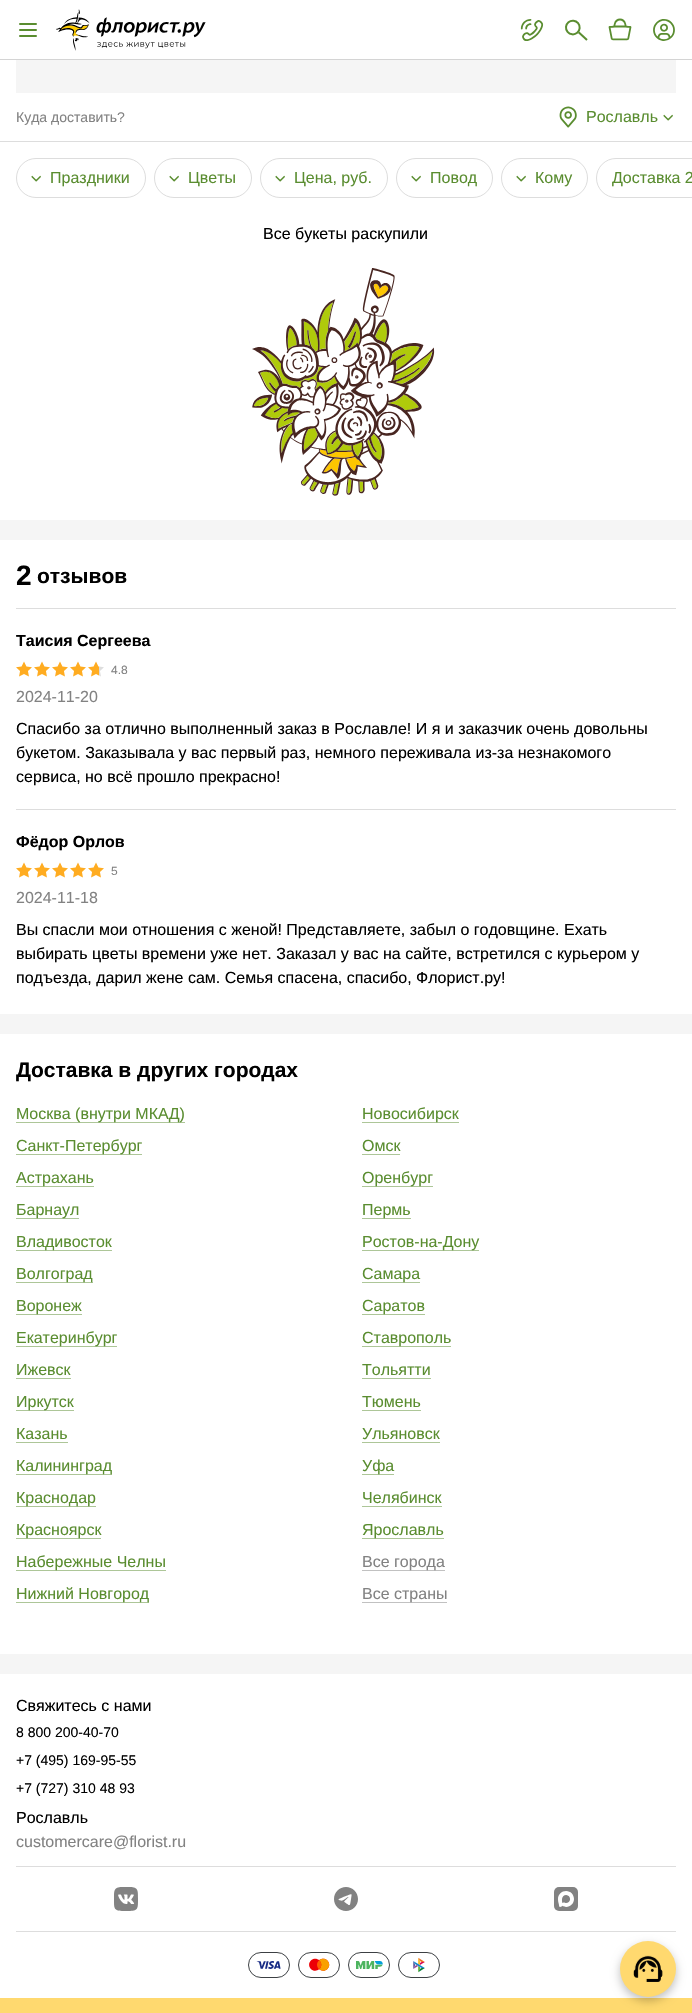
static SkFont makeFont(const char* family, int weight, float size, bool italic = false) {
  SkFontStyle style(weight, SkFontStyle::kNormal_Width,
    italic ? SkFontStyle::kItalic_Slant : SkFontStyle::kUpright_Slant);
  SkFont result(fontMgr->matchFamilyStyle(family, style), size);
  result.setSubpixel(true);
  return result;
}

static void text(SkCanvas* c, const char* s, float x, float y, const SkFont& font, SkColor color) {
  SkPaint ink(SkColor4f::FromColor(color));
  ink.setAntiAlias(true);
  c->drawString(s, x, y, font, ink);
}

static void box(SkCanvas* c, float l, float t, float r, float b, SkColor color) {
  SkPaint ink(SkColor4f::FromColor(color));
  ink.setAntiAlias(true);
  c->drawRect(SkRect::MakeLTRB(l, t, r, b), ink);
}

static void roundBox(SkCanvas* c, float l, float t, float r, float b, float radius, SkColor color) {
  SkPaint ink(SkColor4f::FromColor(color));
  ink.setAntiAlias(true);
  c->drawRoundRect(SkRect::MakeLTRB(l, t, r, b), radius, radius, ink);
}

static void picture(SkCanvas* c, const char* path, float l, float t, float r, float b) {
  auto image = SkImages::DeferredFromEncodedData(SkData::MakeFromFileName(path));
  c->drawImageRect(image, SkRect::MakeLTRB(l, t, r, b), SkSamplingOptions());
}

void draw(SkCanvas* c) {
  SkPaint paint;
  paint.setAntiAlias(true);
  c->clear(0xffffffff);
  roundBox(c, 19, 29, 37, 31, 1, 0xff5a8d30);
  roundBox(c, 19, 23, 37, 25, 1, 0xff5a8d30);
  roundBox(c, 19, 35, 37, 37, 1, 0xff5a8d30);
  picture(c, "img_01.png", 56, 9, 90, 51);
  picture(c, "img_02.png", 96, 17, 206, 38);
  picture(c, "img_03.png", 97, 42, 186, 49);
  picture(c, "img_04.png", 520, 19, 544, 41);
  picture(c, "img_05.png", 565, 19, 588, 41);
  picture(c, "img_06.png", 608, 18, 632, 41);
  picture(c, "img_07.png", 653, 19, 675, 41);
  box(c, 0, 59, 692, 60, 0xffd4d4d4);
  box(c, 16, 60, 676, 93, 0xfff5f5f5);
  box(c, 0, 141, 692, 142, 0xffdddddd);
  SkFont face1 = makeFont("Liberation Sans", 400, 14);
  text(c, "Куда доставить?", 16, 122, face1, 0xff828282);
  picture(c, "img_08.png", 559, 106, 577, 128);
  SkFont face2 = makeFont("Liberation Sans", 400, 16);
  text(c, "Рославль", 586, 122, face2, 0xff5a8d30);
  picture(c, "img_09.png", 663, 114, 673, 121);
  paint.setStyle(SkPaint::kStroke_Style);
  paint.setStrokeWidth(1);
  paint.setColor(0xffdddddd);
  c->drawRoundRect(SkRect::MakeLTRB(16.5f, 158.5f, 145.5f, 197.5f), 19.5f, 19.5f, paint);
  picture(c, "img_10.png", 31, 175, 41, 182);
  text(c, "Праздники", 50, 183, face2, 0xff5a8d30);
  c->drawRoundRect(SkRect::MakeLTRB(154.5f, 158.5f, 251.5f, 197.5f), 19.5f, 19.5f, paint);
  picture(c, "img_10.png", 169, 175, 179, 182);
  text(c, "Цветы", 188, 183, face2, 0xff5a8d30);
  c->drawRoundRect(SkRect::MakeLTRB(260.5f, 158.5f, 387.5f, 197.5f), 19.5f, 19.5f, paint);
  picture(c, "img_10.png", 275, 175, 285, 182);
  text(c, "Цена, руб.", 294, 183, face2, 0xff5a8d30);
  c->drawRoundRect(SkRect::MakeLTRB(396.5f, 158.5f, 492.5f, 197.5f), 19.5f, 19.5f, paint);
  picture(c, "img_10.png", 411, 175, 421, 182);
  text(c, "Повод", 430, 183, face2, 0xff5a8d30);
  c->drawRoundRect(SkRect::MakeLTRB(501.5f, 158.5f, 587.5f, 197.5f), 19.5f, 19.5f, paint);
  picture(c, "img_10.png", 516, 175, 526, 182);
  text(c, "Кому", 535, 183, face2, 0xff5a8d30);
  c->drawRoundRect(SkRect::MakeLTRB(596.5f, 158.5f, 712.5f, 197.5f), 19.5f, 19.5f, paint);
  text(c, "Доставка 2", 612, 183, face2, 0xff5a8d30);
  text(c, "Все букеты раскупили", 263, 239, face2, 0xff000000);
  picture(c, "img_11.png", 252, 268, 435, 496);
  box(c, 0, 520, 692, 540, 0xfff5f5f5);
  SkFont face3 = makeFont("Liberation Sans", 700, 28);
  text(c, "2", 16, 585, face3, 0xff000000);
  SkFont face4 = makeFont("Liberation Sans", 700, 21);
  text(c, "отзывов", 37, 583, face4, 0xff000000);
  box(c, 16, 608, 676, 609, 0xffdddddd);
  SkFont face5 = makeFont("Liberation Sans", 700, 16);
  text(c, "Таисия Сергеева", 16, 646, face5, 0xff000000);
  picture(c, "img_12.png", 16, 661, 32, 677);
  picture(c, "img_12.png", 34, 661, 50, 677);
  picture(c, "img_12.png", 52, 661, 68, 677);
  picture(c, "img_12.png", 70, 661, 86, 677);
  picture(c, "img_13.png", 88, 661, 99, 677);
  picture(c, "img_14.png", 99, 666, 104, 677);
  SkFont face6 = makeFont("Liberation Sans", 400, 12);
  text(c, "4.8", 111, 674, face6, 0xff828282);
  text(c, "2024-11-20", 16, 702, face2, 0xff828282);
  text(c, "Спасибо за отлично выполненный заказ в Рославле! И я и заказчик очень довольны", 16, 734, face2, 0xff000000);
  text(c, "букетом. Заказывала у вас первый раз, немного переживала из-за незнакомого", 16, 758, face2, 0xff000000);
  text(c, "сервиса, но всё прошло прекрасно!", 16, 782, face2, 0xff000000);
  box(c, 16, 809, 676, 810, 0xffdddddd);
  text(c, "Фёдор Орлов", 16, 847, face5, 0xff000000);
  picture(c, "img_12.png", 16, 862, 32, 878);
  picture(c, "img_12.png", 34, 862, 50, 878);
  picture(c, "img_12.png", 52, 862, 68, 878);
  picture(c, "img_12.png", 70, 862, 86, 878);
  picture(c, "img_12.png", 88, 862, 104, 878);
  text(c, "5", 111, 875, face6, 0xff828282);
  text(c, "2024-11-18", 16, 903, face2, 0xff828282);
  text(c, "Вы спасли мои отношения с женой! Представляете, забыл о годовщине. Ехать", 16, 935, face2, 0xff000000);
  text(c, "выбирать цветы времени уже нет. Заказал у вас на сайте, встретился с курьером у", 16, 959, face2, 0xff000000);
  text(c, "подъезда, дарил жене сам. Семья спасена, спасибо, Флорист.ру!", 16, 983, face2, 0xff000000);
  box(c, 0, 1014, 692, 1034, 0xfff5f5f5);
  text(c, "Доставка в других городах", 16, 1077, face4, 0xff000000);
  box(c, 16, 1122, 185, 1123, 0xffadc698);
  text(c, "Москва (внутри МКАД)", 16, 1119, face2, 0xff5a8d30);
  box(c, 16, 1154, 142, 1155, 0xffadc698);
  text(c, "Санкт-Петербург", 16, 1151, face2, 0xff5a8d30);
  box(c, 16, 1186, 94, 1187, 0xffadc698);
  text(c, "Астрахань", 16, 1183, face2, 0xff5a8d30);
  box(c, 16, 1218, 79, 1219, 0xffadc698);
  text(c, "Барнаул", 16, 1215, face2, 0xff5a8d30);
  box(c, 16, 1250, 112, 1251, 0xffadc698);
  text(c, "Владивосток", 16, 1247, face2, 0xff5a8d30);
  box(c, 16, 1282, 93, 1283, 0xffadc698);
  text(c, "Волгоград", 16, 1279, face2, 0xff5a8d30);
  box(c, 16, 1314, 82, 1315, 0xffadc698);
  text(c, "Воронеж", 16, 1311, face2, 0xff5a8d30);
  box(c, 16, 1346, 117, 1347, 0xffadc698);
  text(c, "Екатеринбург", 16, 1343, face2, 0xff5a8d30);
  box(c, 362, 1122, 459, 1123, 0xffadc698);
  text(c, "Новосибирск", 362, 1119, face2, 0xff5a8d30);
  text(c, "Омск", 362, 1151, face2, 0xff5a8d30);
  box(c, 362, 1154, 400, 1155, 0xffadc698);
  box(c, 362, 1186, 433, 1187, 0xffadc698);
  text(c, "Оренбург", 362, 1183, face2, 0xff5a8d30);
  box(c, 362, 1218, 411, 1219, 0xffadc698);
  text(c, "Пермь", 362, 1215, face2, 0xff5a8d30);
  box(c, 362, 1250, 479, 1251, 0xffadc698);
  text(c, "Ростов-на-Дону", 362, 1247, face2, 0xff5a8d30);
  box(c, 362, 1282, 420, 1283, 0xffadc698);
  text(c, "Самара", 362, 1279, face2, 0xff5a8d30);
  box(c, 362, 1314, 425, 1315, 0xffadc698);
  text(c, "Саратов", 362, 1311, face2, 0xff5a8d30);
  box(c, 362, 1346, 451, 1347, 0xffadc698);
  text(c, "Ставрополь", 362, 1343, face2, 0xff5a8d30);
  text(c, "Ижевск", 16, 1375, face2, 0xff5a8d30);
  box(c, 16, 1378, 71, 1379, 0xffadc698);
  box(c, 16, 1410, 74, 1411, 0xffadc698);
  text(c, "Иркутск", 16, 1407, face2, 0xff5a8d30);
  text(c, "Казань", 16, 1439, face2, 0xff5a8d30);
  box(c, 16, 1442, 68, 1443, 0xffadc698);
  box(c, 16, 1474, 112, 1475, 0xffadc698);
  text(c, "Калининград", 16, 1471, face2, 0xff5a8d30);
  box(c, 16, 1506, 96, 1507, 0xffadc698);
  text(c, "Краснодар", 16, 1503, face2, 0xff5a8d30);
  box(c, 16, 1538, 101, 1539, 0xffadc698);
  text(c, "Красноярск", 16, 1535, face2, 0xff5a8d30);
  box(c, 16, 1570, 166, 1571, 0xffadc698);
  text(c, "Набережные Челны", 16, 1567, face2, 0xff5a8d30);
  box(c, 16, 1602, 149, 1603, 0xffadc698);
  text(c, "Нижний Новгород", 16, 1599, face2, 0xff5a8d30);
  text(c, "Тольятти", 362, 1375, face2, 0xff5a8d30);
  box(c, 362, 1378, 431, 1379, 0xffadc698);
  text(c, "Тюмень", 362, 1407, face2, 0xff5a8d30);
  box(c, 362, 1410, 421, 1411, 0xffadc698);
  text(c, "Ульяновск", 362, 1439, face2, 0xff5a8d30);
  box(c, 362, 1442, 440, 1443, 0xffadc698);
  box(c, 362, 1474, 394, 1475, 0xffadc698);
  text(c, "Уфа", 362, 1471, face2, 0xff5a8d30);
  text(c, "Челябинск", 362, 1503, face2, 0xff5a8d30);
  box(c, 362, 1506, 442, 1507, 0xffadc698);
  box(c, 362, 1538, 444, 1539, 0xffadc698);
  text(c, "Ярославль", 362, 1535, face2, 0xff5a8d30);
  box(c, 362, 1570, 445, 1571, 0xffc1c1c1);
  text(c, "Все города", 362, 1567, face2, 0xff828282);
  box(c, 362, 1602, 447, 1603, 0xffc1c1c1);
  text(c, "Все страны", 362, 1599, face2, 0xff828282);
  box(c, 0, 1654, 692, 1674, 0xfff5f5f5);
  text(c, "Свяжитесь с нами", 16, 1711, face2, 0xff000000);
  text(c, "8 800 200-40-70", 16, 1737, face1, 0xff000000);
  text(c, "+7 (495) 169-95-55", 16, 1765, face1, 0xff000000);
  text(c, "+7 (727) 310 48 93", 16, 1793, face1, 0xff000000);
  text(c, "Рославль", 16, 1823, face2, 0xff000000);
  text(c, "customercare@florist.ru", 16, 1847, face2, 0xff828282);
  box(c, 16, 1866, 676, 1867, 0xffdddddd);
  box(c, 16, 1931, 676, 1932, 0xffdddddd);
  picture(c, "img_15.png", 114, 1887, 138, 1911);
  picture(c, "img_16.png", 334, 1887, 358, 1911);
  picture(c, "img_17.png", 554, 1887, 578, 1911);
  paint.setColor(0xff3c4043);
  c->drawRoundRect(SkRect::MakeLTRB(248.5f, 1952.5f, 289.5f, 1977.5f), 12.5f, 12.5f, paint);
  picture(c, "img_18.png", 256, 1961, 281, 1969);
  c->drawRoundRect(SkRect::MakeLTRB(298.5f, 1952.5f, 339.5f, 1977.5f), 12.5f, 12.5f, paint);
  picture(c, "img_19.png", 309, 1958, 330, 1971);
  c->drawRoundRect(SkRect::MakeLTRB(348.5f, 1952.5f, 389.5f, 1977.5f), 12.5f, 12.5f, paint);
  picture(c, "img_20.png", 356, 1961, 383, 1969);
  c->drawRoundRect(SkRect::MakeLTRB(398.5f, 1952.5f, 439.5f, 1977.5f), 12.5f, 12.5f, paint);
  picture(c, "img_21.png", 413, 1957, 425, 1973);
  box(c, 0, 1998, 692, 2013, 0xffffd96f);
  paint.setStyle(SkPaint::kFill_Style);
  paint.setColor(0x40000000);
  paint.setMaskFilter(SkMaskFilter::MakeBlur(kNormal_SkBlurStyle, 5));
  c->drawRoundRect(SkRect::MakeLTRB(620, 1945, 676, 2001), 28, 28, paint);
  paint.setMaskFilter(nullptr);
  paint.setColor(0xffffd96f);
  c->drawCircle(648, 1969, 28, paint);
  picture(c, "img_22.png", 633, 1955, 663, 1982);
}
